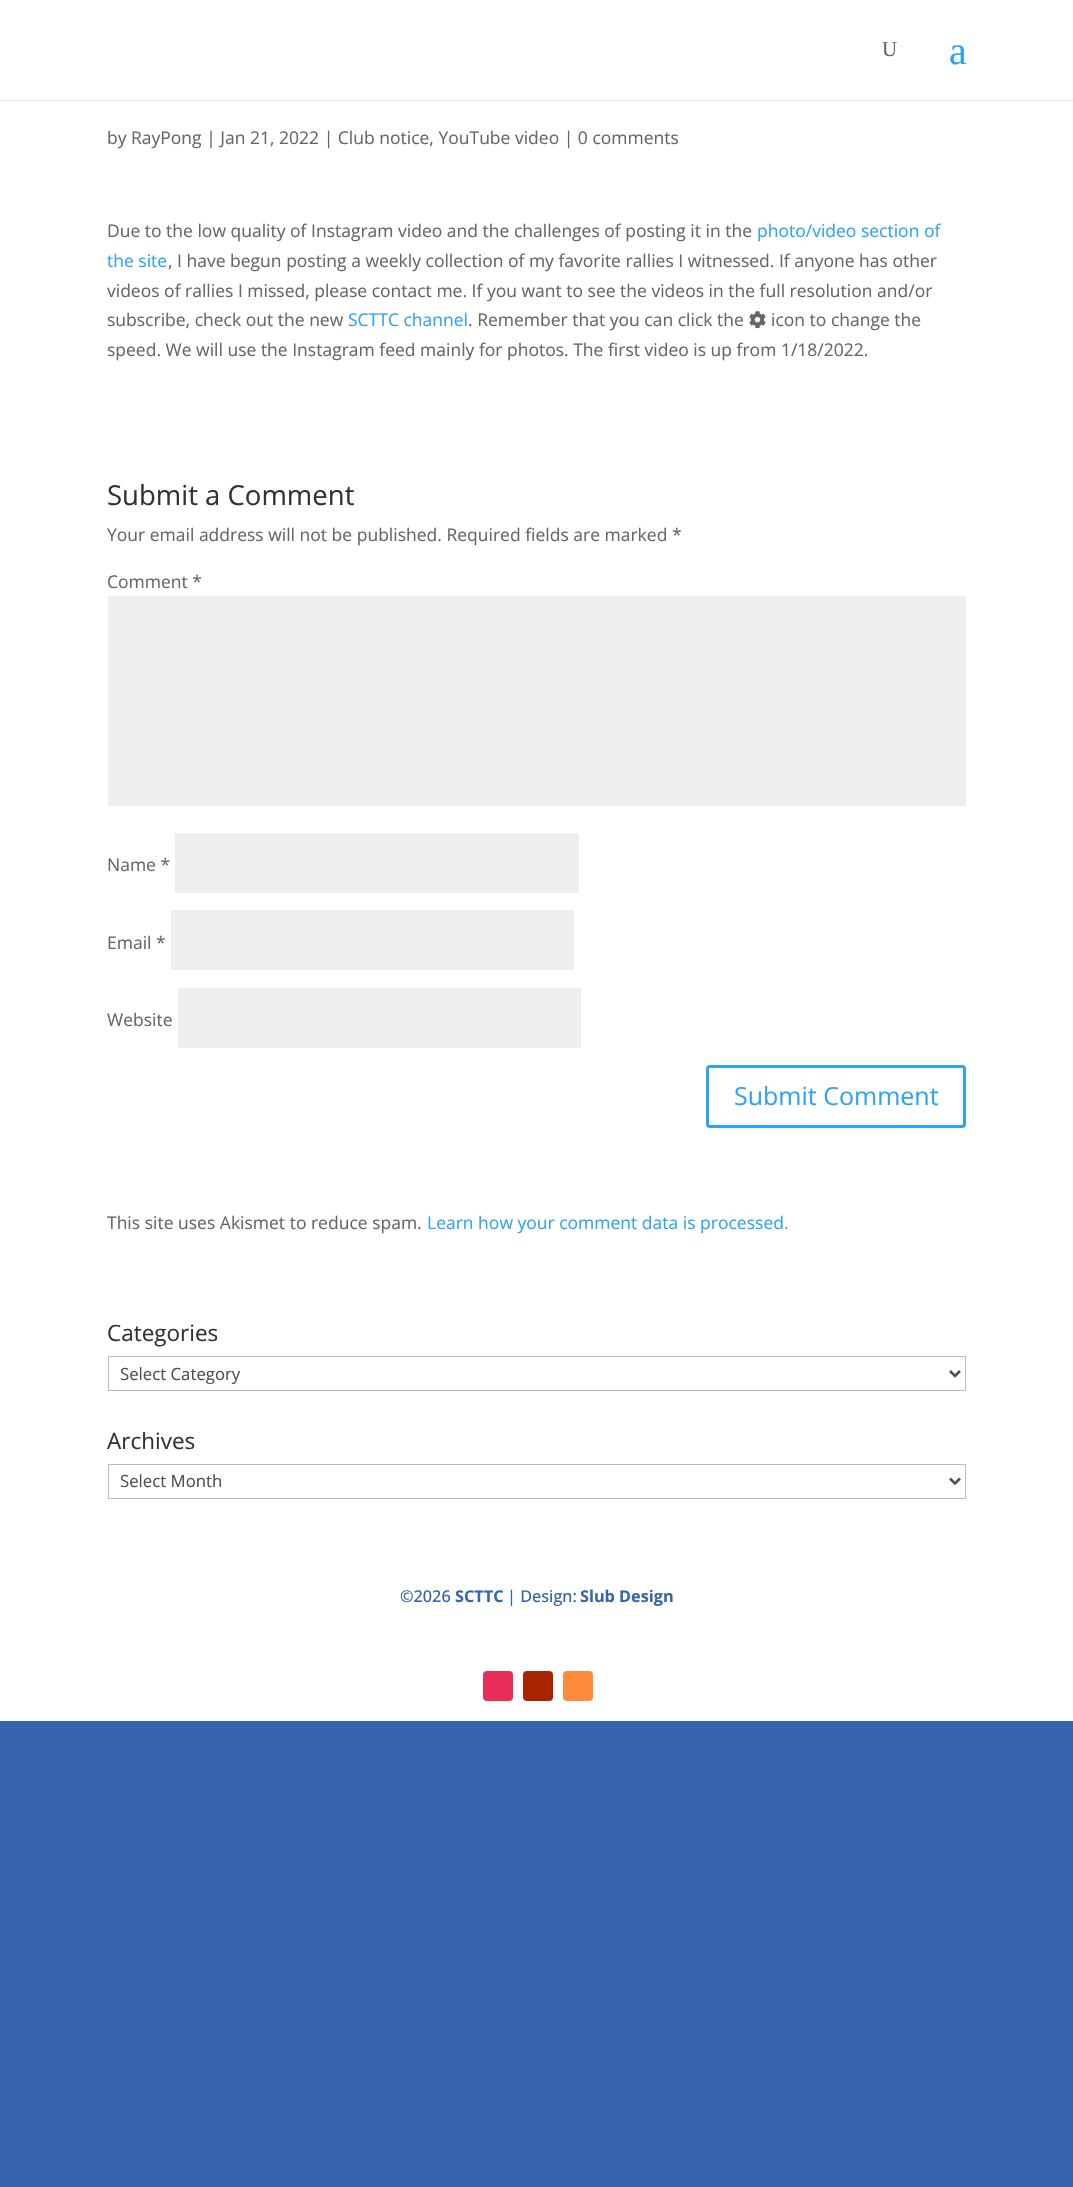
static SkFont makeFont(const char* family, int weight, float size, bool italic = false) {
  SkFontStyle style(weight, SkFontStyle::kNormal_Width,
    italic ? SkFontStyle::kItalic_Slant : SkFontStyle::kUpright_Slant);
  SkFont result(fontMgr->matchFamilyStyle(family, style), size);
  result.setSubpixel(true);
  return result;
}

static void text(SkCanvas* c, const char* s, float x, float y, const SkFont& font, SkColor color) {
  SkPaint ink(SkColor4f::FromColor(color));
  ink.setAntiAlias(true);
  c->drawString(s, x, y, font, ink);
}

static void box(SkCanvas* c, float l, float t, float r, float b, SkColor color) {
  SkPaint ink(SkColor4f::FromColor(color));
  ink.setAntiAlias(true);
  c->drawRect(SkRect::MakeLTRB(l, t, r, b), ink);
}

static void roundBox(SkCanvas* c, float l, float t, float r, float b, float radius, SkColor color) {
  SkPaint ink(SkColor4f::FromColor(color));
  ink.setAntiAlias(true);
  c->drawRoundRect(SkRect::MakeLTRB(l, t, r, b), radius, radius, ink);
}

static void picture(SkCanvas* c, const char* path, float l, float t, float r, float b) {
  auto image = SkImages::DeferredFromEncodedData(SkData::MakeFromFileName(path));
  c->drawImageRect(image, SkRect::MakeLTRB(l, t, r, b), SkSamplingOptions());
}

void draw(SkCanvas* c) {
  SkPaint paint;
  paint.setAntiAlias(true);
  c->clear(0xff3665ad);
  box(c, 0, 0, 1073, 1721, 0xffffffff);
  paint.setColor(0x1a000000);
  c->drawPath(SkPathBuilder().moveTo(0, 100).lineTo(0, 101).lineTo(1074, 101).lineTo(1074, 1).lineTo(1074, 100).close().detach(), paint);
  SkFont face1 = makeFont("Liberation Serif", 400, 21);
  text(c, "U", 882, 56, face1, 0xff666666);
  SkFont face2 = makeFont("Liberation Serif", 400, 40);
  text(c, "a", 949, 64, face2, 0xff2ea3f2);
  SkFont face3 = makeFont("Open Sans", 400, 17.5f);
  text(c, "by RayPong | Jan 21, 2022 | Club notice, YouTube video | 0 comments", 107, 144, face3, 0xff666666);
  text(c, "Due to the low quality of Instagram video and the challenges of posting it in the", 107, 237, face3, 0xff666666);
  text(c, "photo/video section of", 757, 237, face3, 0xff2ea3f2);
  text(c, "the site", 107, 267, face3, 0xff2ea3f2);
  text(c, ", I have begun posting a weekly collection of my favorite rallies I witnessed. If anyone has other", 168, 267, face3, 0xff666666);
  text(c, "videos of rallies I missed, please contact me. If you want to see the videos in the full resolution and/or", 107, 297, face3, 0xff666666);
  text(c, "subscribe, check out the new", 107, 326, face3, 0xff666666);
  text(c, "SCTTC channel", 348, 326, face3, 0xff2ea3f2);
  text(c, ". Remember that you can click the", 468, 326, face3, 0xff666666);
  picture(c, "img_01.png", 749, 311, 766, 329);
  text(c, "icon to change the", 771, 326, face3, 0xff666666);
  text(c, "speed. We will use the Instagram feed mainly for photos. The first video is up from 1/18/2022.", 107, 356, face3, 0xff666666);
  SkFont face4 = makeFont("Open Sans", 400, 27.5f);
  text(c, "Submit a Comment", 107, 505, face4, 0xff333333);
  text(c, "Your email address will not be published. Required fields are marked *", 107, 541, face3, 0xff666666);
  text(c, "Comment *", 107, 588, face3, 0xff666666);
  box(c, 108, 596, 966, 806, 0xffeeeeee);
  text(c, "Name *", 107, 871, face3, 0xff666666);
  box(c, 175, 833, 579, 893, 0xffeeeeee);
  text(c, "Email *", 107, 949, face3, 0xff666666);
  box(c, 171, 910, 574, 970, 0xffeeeeee);
  text(c, "Website", 107, 1026, face3, 0xff666666);
  box(c, 178, 988, 581, 1048, 0xffeeeeee);
  paint.setStyle(SkPaint::kStroke_Style);
  paint.setStrokeWidth(3);
  paint.setColor(0xff2ea3f2);
  c->drawRoundRect(SkRect::MakeLTRB(707.5f, 1066.5f, 964.5f, 1126.5f), 2.5f, 2.5f, paint);
  SkFont face5 = makeFont("Open Sans", 400, 25);
  text(c, "Submit Comment", 734, 1105, face5, 0xff2ea3f2);
  text(c, "This site uses Akismet to reduce spam.", 107, 1229, face3, 0xff666666);
  text(c, "Learn how your comment data is processed.", 427, 1229, face3, 0xff2ea3f2);
  SkFont face6 = makeFont("Open Sans", 400, 22.5f);
  text(c, "Categories", 107, 1341, face6, 0xff333333);
  paint.setStrokeWidth(1);
  paint.setColor(0xffbbbbbb);
  c->drawRect(SkRect::MakeLTRB(108.5f, 1356.5f, 965.5f, 1390.5f), paint);
  paint.setStrokeWidth(2.5f);
  paint.setColor(0xff4e4e4e);
  c->drawPath(SkPathBuilder().moveTo(950, 1371).lineTo(955, 1376).lineTo(960, 1371).detach(), paint);
  SkFont face7 = makeFont("Open Sans", 400, 16.75f);
  text(c, "Select Category", 120, 1380, face7, 0xff4e4e4e);
  text(c, "Archives", 107, 1449, face6, 0xff333333);
  paint.setStrokeWidth(1);
  paint.setColor(0xffbbbbbb);
  c->drawRect(SkRect::MakeLTRB(108.5f, 1464.5f, 965.5f, 1498.5f), paint);
  paint.setStrokeWidth(2.5f);
  paint.setColor(0xff4e4e4e);
  c->drawPath(SkPathBuilder().moveTo(950, 1478.5f).lineTo(955, 1483.5f).lineTo(960, 1478.5f).detach(), paint);
  text(c, "Select Month", 120, 1487, face7, 0xff4e4e4e);
  SkFont face8 = makeFont("Open Sans", 500, 16.25f);
  text(c, "©2026", 400, 1602, face8, 0xff3665ad);
  SkFont face9 = makeFont("Open Sans", 700, 16.25f);
  text(c, "SCTTC", 455, 1602, face9, 0xff3665ad);
  text(c, "| Design:", 507, 1602, face8, 0xff3665ad);
  text(c, "Slub Design", 580, 1602, face9, 0xff3665ad);
  roundBox(c, 483, 1671, 513, 1701, 4, 0xffea2c59);
  roundBox(c, 523, 1671, 553, 1701, 4, 0xffa82400);
  roundBox(c, 563, 1671, 593, 1701, 4, 0xffff8a3c);
}
